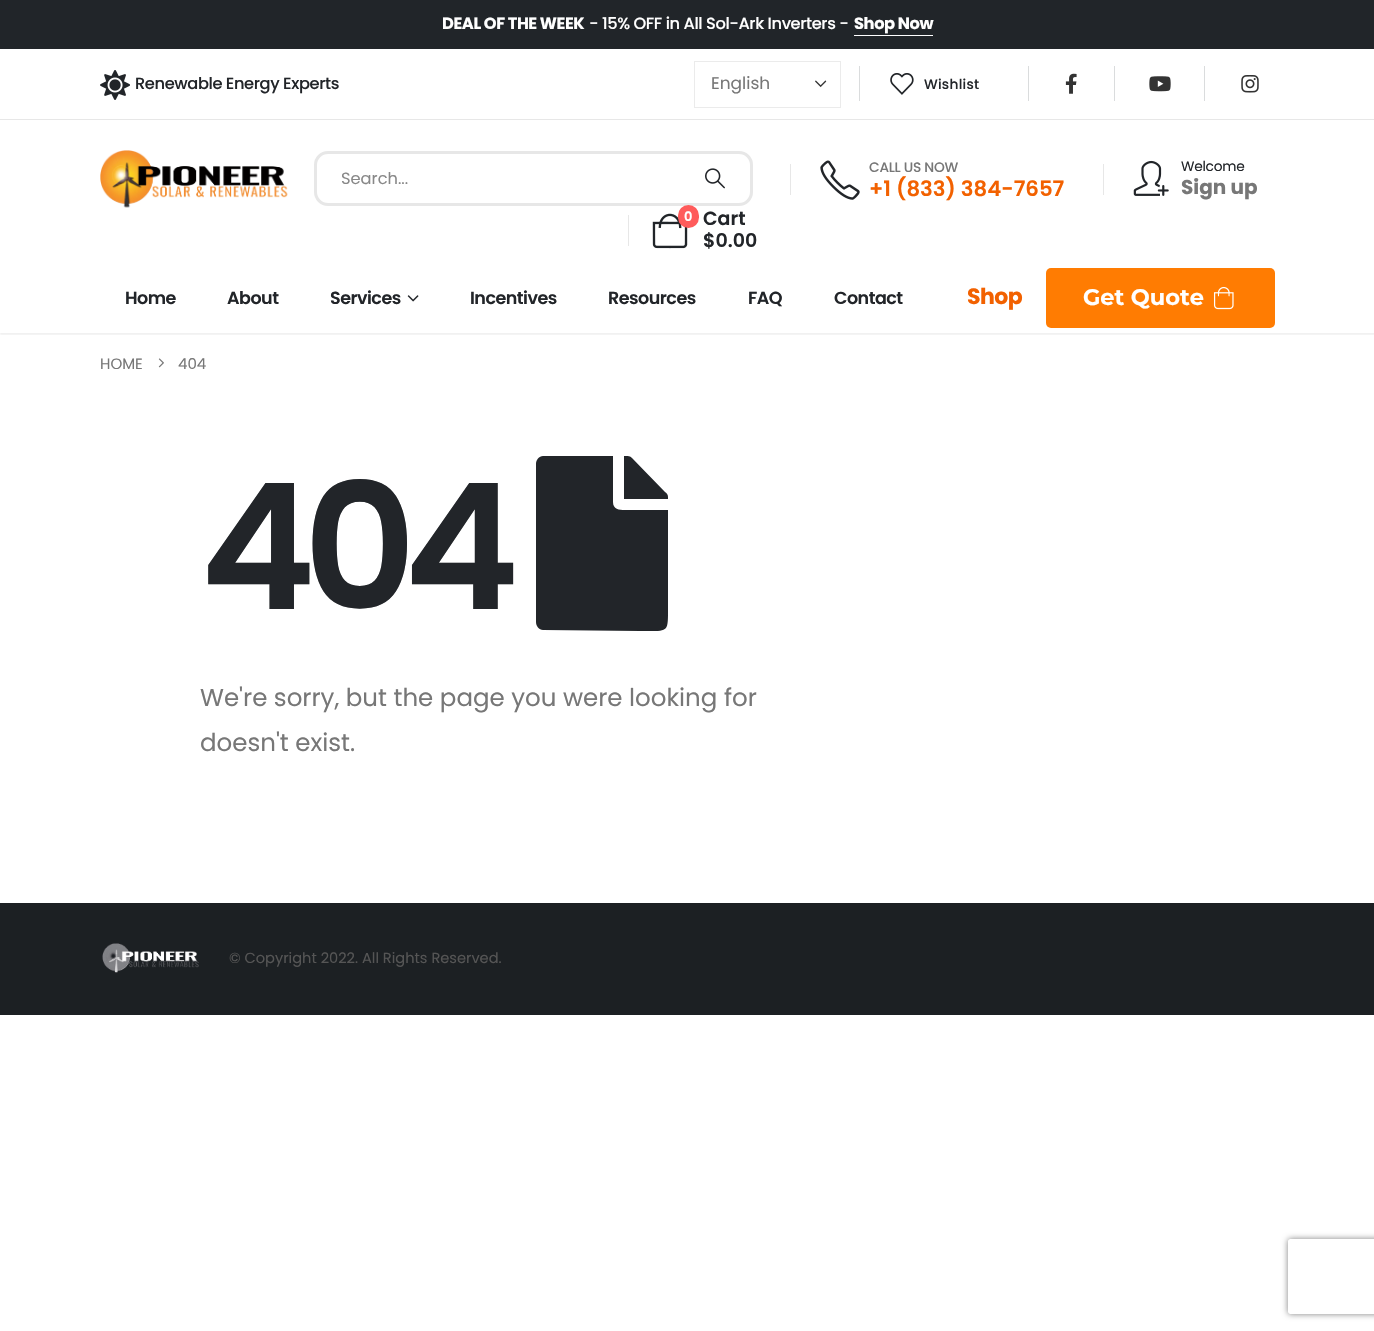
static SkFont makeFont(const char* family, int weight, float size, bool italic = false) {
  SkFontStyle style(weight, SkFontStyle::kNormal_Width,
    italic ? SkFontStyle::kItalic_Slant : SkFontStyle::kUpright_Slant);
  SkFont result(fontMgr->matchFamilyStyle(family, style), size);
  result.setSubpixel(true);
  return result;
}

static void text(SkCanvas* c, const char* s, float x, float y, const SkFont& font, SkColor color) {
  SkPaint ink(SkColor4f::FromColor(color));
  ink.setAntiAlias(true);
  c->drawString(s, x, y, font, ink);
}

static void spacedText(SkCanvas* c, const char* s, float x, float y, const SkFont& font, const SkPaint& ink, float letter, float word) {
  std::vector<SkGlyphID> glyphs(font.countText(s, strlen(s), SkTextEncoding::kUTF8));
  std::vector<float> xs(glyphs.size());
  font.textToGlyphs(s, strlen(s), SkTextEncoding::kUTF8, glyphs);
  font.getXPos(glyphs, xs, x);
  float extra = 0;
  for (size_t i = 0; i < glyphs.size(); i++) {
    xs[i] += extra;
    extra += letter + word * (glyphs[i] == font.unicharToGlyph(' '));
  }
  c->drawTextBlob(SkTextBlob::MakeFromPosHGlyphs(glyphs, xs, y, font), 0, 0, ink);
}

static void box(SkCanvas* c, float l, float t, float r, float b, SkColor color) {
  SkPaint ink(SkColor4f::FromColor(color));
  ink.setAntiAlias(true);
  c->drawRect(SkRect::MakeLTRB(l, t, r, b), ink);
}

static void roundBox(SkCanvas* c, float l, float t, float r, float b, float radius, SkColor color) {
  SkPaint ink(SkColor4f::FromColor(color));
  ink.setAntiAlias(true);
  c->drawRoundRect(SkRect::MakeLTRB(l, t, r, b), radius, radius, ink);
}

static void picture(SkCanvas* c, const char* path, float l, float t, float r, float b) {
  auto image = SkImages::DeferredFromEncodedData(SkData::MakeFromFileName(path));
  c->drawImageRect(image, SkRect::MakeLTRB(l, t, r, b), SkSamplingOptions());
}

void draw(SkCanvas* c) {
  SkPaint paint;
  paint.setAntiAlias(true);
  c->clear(0xffffffff);
  c->save();
  c->clipRect(SkRect::MakeLTRB(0, 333, 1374, 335));
  paint.setColor(0x0f000000);
  paint.setMaskFilter(SkMaskFilter::MakeBlur(kNormal_SkBlurStyle, 1));
  c->drawRect(SkRect::MakeLTRB(0, 3, 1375, 335), paint);
  paint.setMaskFilter(nullptr);
  c->restore();
  box(c, 0, 0, 1374, 49, 0xff212529);
  SkFont face1 = makeFont("Poppins", 700, 16.25f);
  paint.setColor(0xffffffff);
  spacedText(c, "DEAL OF THE WEEK", 442, 29, face1, paint, -0.4f, 0);
  SkFont face2 = makeFont("Poppins", 500, 16.25f);
  spacedText(c, "- 15% OFF in All Sol-Ark Inverters -", 589, 29, face2, paint, -0.4f, 0);
  box(c, 854, 35, 933, 36, 0xffffffff);
  spacedText(c, "Shop Now", 854, 29, face1, paint, -0.4f, 0);
  box(c, 0, 119, 1374, 120, 0xffe7e7e7);
  picture(c, "img_01.png", 100, 70, 130, 100);
  paint.setColor(0xff222529);
  spacedText(c, "Renewable Energy Experts", 135, 89, face2, paint, -0.4f, 0);
  picture(c, "img_02.png", 815, 80, 827, 88);
  paint.setStyle(SkPaint::kStroke_Style);
  paint.setStrokeWidth(1);
  paint.setColor(0xffebebeb);
  c->drawRect(SkRect::MakeLTRB(694.5f, 61.5f, 840.5f, 107.5f), paint);
  SkFont face3 = makeFont("Poppins", 400, 17);
  text(c, "English", 711, 89, face3, 0xff777777);
  box(c, 859, 66, 860, 101, 0xffdadcdd);
  picture(c, "img_03.png", 890, 73, 914, 95);
  SkFont face4 = makeFont("Poppins", 500, 13.75f);
  paint.setStyle(SkPaint::kFill_Style);
  paint.setColor(0xff222529);
  spacedText(c, "Wishlist", 924, 89, face4, paint, 0.25f, 0);
  box(c, 1028, 66, 1029, 101, 0xffdadcdd);
  picture(c, "img_04.png", 1065, 73, 1077, 94);
  box(c, 1114, 66, 1115, 101, 0xffdadcdd);
  picture(c, "img_05.png", 1149, 76, 1171, 92);
  box(c, 1204, 66, 1205, 101, 0xffdadcdd);
  picture(c, "img_06.png", 1241, 75, 1259, 93);
  picture(c, "img_07.png", 100, 150, 288, 208);
  paint.setStyle(SkPaint::kStroke_Style);
  paint.setStrokeWidth(3);
  paint.setColor(0xffe7e7e7);
  c->drawRoundRect(SkRect::MakeLTRB(315.5f, 152.5f, 751.5f, 204.5f), 12.5f, 12.5f, paint);
  SkFont face5 = makeFont("Poppins", 400, 16.25f);
  text(c, "Search...", 341, 184, face5, 0xff888888);
  picture(c, "img_08.png", 705, 168, 725, 189);
  box(c, 790, 164, 791, 195, 0xffe7e7e7);
  picture(c, "img_09.png", 820, 160, 860, 200);
  paint.setStyle(SkPaint::kFill_Style);
  paint.setColor(0xff777777);
  spacedText(c, "CALL US NOW", 869, 172, face4, paint, -0.25f, 0);
  SkFont face6 = makeFont("Poppins", 600, 21.25f);
  text(c, "+1 (833) 384-7657", 869, 196, face6, 0xfff26100);
  box(c, 1103, 164, 1104, 195, 0xffe7e7e7);
  picture(c, "img_10.png", 1133, 160, 1169, 196);
  SkFont face7 = makeFont("Poppins", 400, 13.75f);
  paint.setColor(0xff222529);
  spacedText(c, "Welcome", 1181, 171, face7, paint, -0.25f, 0);
  SkFont face8 = makeFont("Poppins", 700, 20);
  text(c, "Sign up", 1181, 194, face8, 0xff777777);
  box(c, 628, 215, 629, 246, 0xffe7e7e7);
  picture(c, "img_11.png", 652, 213, 688, 249);
  roundBox(c, 678, 205, 699, 228, 10.5f, 0xffff5b5b);
  SkFont face9 = makeFont("Poppins", 600, 13);
  text(c, "0", 684, 221, face9, 0xffffffff);
  SkFont face10 = makeFont("Poppins", 600, 19);
  text(c, "Cart", 703, 225, face10, 0xff222529);
  text(c, "$0.00", 703, 247, face10, 0xff222529);
  box(c, 0, 332, 1374, 333, 0xffffffff);
  SkFont face11 = makeFont("Poppins", 600, 17.5f);
  spacedText(c, "Home", 125, 304, face11, paint, -0.5f, 0);
  spacedText(c, "About", 227, 304, face11, paint, -0.5f, 0);
  spacedText(c, "Services", 330, 304, face11, paint, -0.5f, 0);
  picture(c, "img_12.png", 407, 295, 419, 302);
  spacedText(c, "Incentives", 470, 304, face11, paint, -0.5f, 0);
  spacedText(c, "Resources", 608, 304, face11, paint, -0.5f, 0);
  spacedText(c, "FAQ", 748, 304, face11, paint, -0.5f, 0);
  spacedText(c, "Contact", 834, 304, face11, paint, -0.5f, 0);
  SkFont face12 = makeFont("Poppins", 700, 22);
  paint.setColor(0xfff26100);
  spacedText(c, "Shop", 967, 304, face12, paint, -0.5f, 0);
  roundBox(c, 1046, 268, 1275, 328, 5, 0xffff7c02);
  SkFont face13 = makeFont("Montserrat", 700, 22.5f);
  text(c, "Get Quote", 1083, 305, face13, 0xffffffff);
  picture(c, "img_13.png", 1213, 286, 1234, 310);
  SkFont face14 = makeFont("Poppins", 400, 15);
  text(c, "HOME", 100, 369, face14, 0xff777777);
  picture(c, "img_14.png", 158, 358, 164, 368);
  text(c, "404", 178, 369, face14, 0xff777777);
  SkFont face15 = makeFont("Poppins", 600, 175);
  paint.setColor(0xff222529);
  spacedText(c, "404", 200, 609, face15, paint, -12.5f, 0);
  c->drawPath(SkPathBuilder().moveTo(613, 502).cubicTo(613, 511, 622, 510, 629, 510).lineTo(668, 510).lineTo(668, 604).cubicTo(668, 634, 670, 631, 640, 631).lineTo(543, 630).cubicTo(539, 630, 536, 626, 536, 622).lineTo(536, 464).cubicTo(536, 460, 539, 456, 543, 456).lineTo(613, 456).close().moveTo(668, 497).lineTo(668, 499).lineTo(624, 499).lineTo(624, 456).lineTo(626, 456).cubicTo(628, 456, 630, 456, 632, 458).lineTo(665, 492).cubicTo(667, 493, 668, 495, 668, 497).close().detach(), paint);
  SkFont face16 = makeFont("Poppins", 400, 24.5f);
  text(c, "We're sorry, but the page you were looking for", 200, 706, face16, 0xff777777);
  text(c, "doesn't exist.", 200, 751, face16, 0xff777777);
  box(c, 0, 903, 1374, 1015, 0xff1c2023);
  picture(c, "img_15.png", 102, 943, 199, 973);
  SkFont face17 = makeFont("Poppins", 400, 14.6f);
  text(c, "© Copyright 2022. All Rights Reserved.", 229, 963, face17, 0xff555555);
  c->save();
  c->clipPath(SkPathBuilder(SkPathFillType::kEvenOdd).moveTo(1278, 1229).lineTo(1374, 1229).lineTo(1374, 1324).lineTo(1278, 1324).close().moveTo(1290.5f, 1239).lineTo(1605.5f, 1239).cubicTo(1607, 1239, 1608, 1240, 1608, 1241.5f).lineTo(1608, 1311.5f).cubicTo(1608, 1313, 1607, 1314, 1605.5f, 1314).lineTo(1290.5f, 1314).cubicTo(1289, 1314, 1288, 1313, 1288, 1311.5f).lineTo(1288, 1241.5f).cubicTo(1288, 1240, 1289, 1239, 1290.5f, 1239).close().detach(), true);
  paint.setColor(0xff808080);
  paint.setMaskFilter(SkMaskFilter::MakeBlur(kNormal_SkBlurStyle, 3));
  c->drawRoundRect(SkRect::MakeLTRB(1288, 1239, 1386, 1314), 2.5f, 2.5f, paint);
  paint.setMaskFilter(nullptr);
  c->restore();
}
